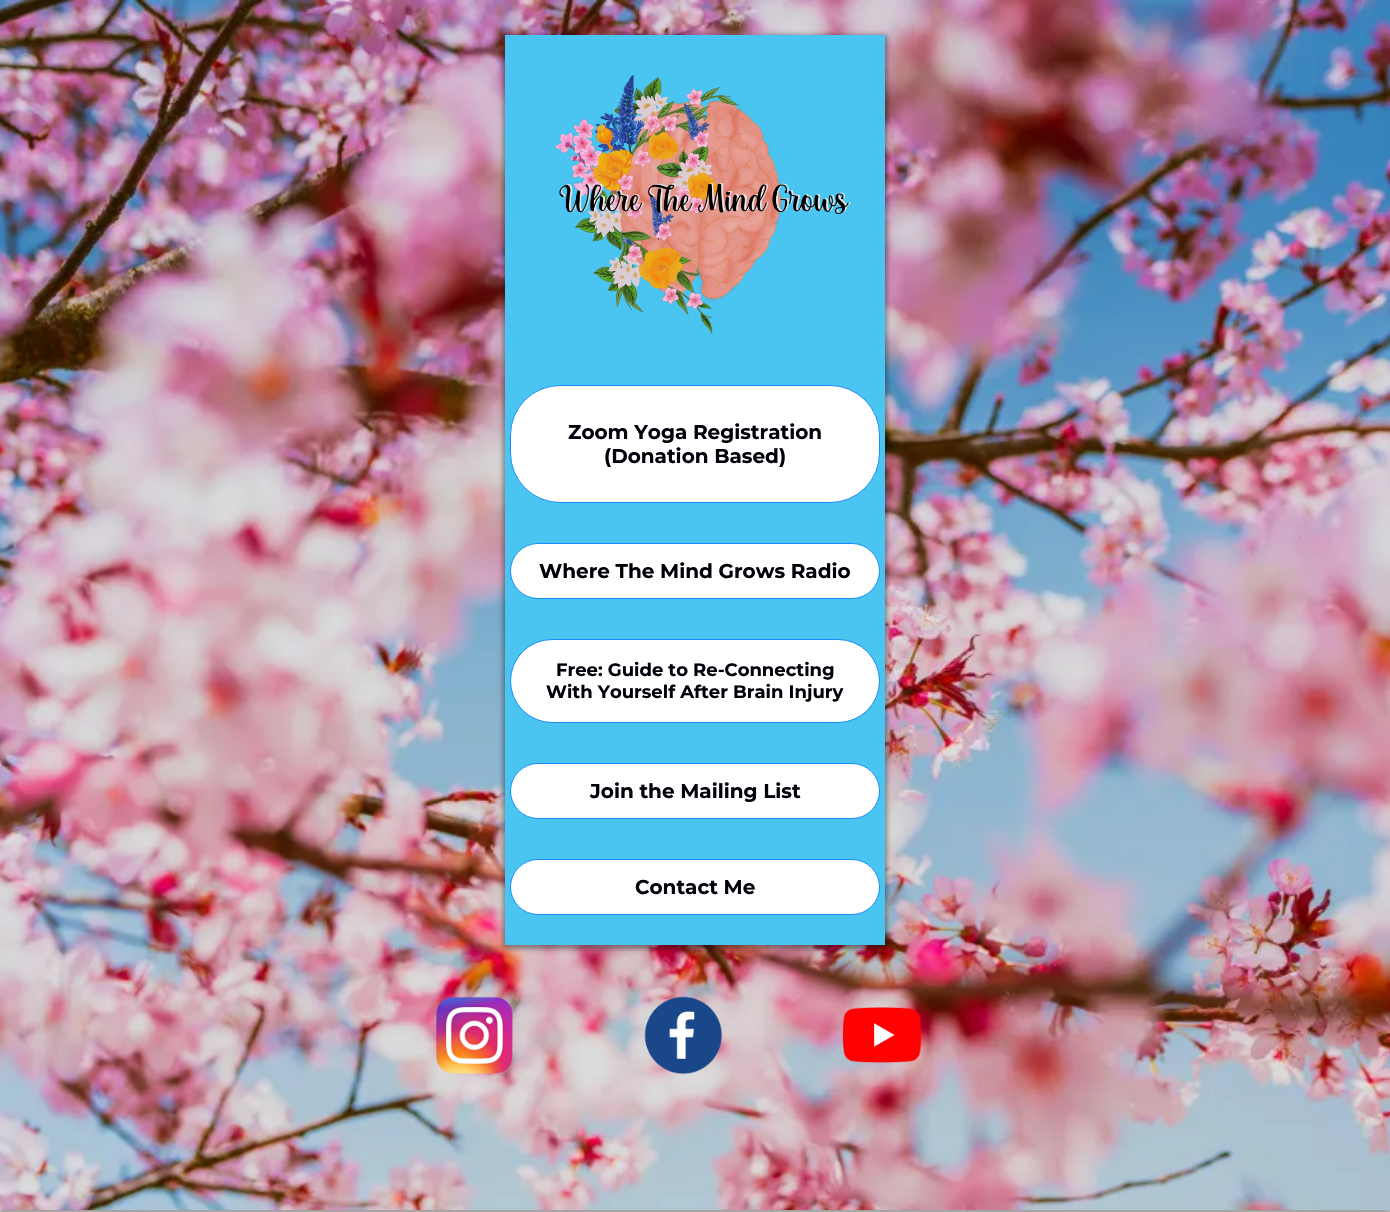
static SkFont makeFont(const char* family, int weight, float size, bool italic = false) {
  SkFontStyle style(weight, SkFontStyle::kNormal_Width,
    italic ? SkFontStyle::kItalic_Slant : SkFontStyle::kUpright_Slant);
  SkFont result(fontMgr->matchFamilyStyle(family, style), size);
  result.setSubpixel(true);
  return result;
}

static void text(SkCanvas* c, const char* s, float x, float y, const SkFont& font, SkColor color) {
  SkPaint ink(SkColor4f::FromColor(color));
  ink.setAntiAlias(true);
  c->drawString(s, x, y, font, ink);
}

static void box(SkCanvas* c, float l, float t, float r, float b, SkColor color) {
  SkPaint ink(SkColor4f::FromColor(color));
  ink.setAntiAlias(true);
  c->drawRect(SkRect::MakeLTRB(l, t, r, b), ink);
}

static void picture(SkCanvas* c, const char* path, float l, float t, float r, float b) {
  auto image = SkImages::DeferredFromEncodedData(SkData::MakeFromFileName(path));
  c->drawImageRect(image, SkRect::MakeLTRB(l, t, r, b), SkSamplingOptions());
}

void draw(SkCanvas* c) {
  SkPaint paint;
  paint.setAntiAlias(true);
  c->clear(0xffffffff);
  paint.setColor(0x66000000);
  paint.setMaskFilter(SkMaskFilter::MakeBlur(kNormal_SkBlurStyle, 2.5f));
  c->drawRect(SkRect::MakeLTRB(-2, 0, 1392, 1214), paint);
  paint.setMaskFilter(nullptr);
  picture(c, "img_01.png", 0, 0, 1390, 1210);
  paint.setMaskFilter(SkMaskFilter::MakeBlur(kNormal_SkBlurStyle, 2.5f));
  c->drawRect(SkRect::MakeLTRB(503, 35, 887, 949), paint);
  paint.setMaskFilter(nullptr);
  box(c, 505, 35, 885, 945, 0xff4ac4f1);
  picture(c, "img_02.png", 555, 75, 851, 334);
  paint.setColor(0xffffffff);
  c->drawRoundRect(SkRect::MakeLTRB(510.5f, 385.5f, 879.5f, 502.5f), 49.5f, 49.5f, paint);
  paint.setStyle(SkPaint::kStroke_Style);
  paint.setStrokeWidth(1);
  paint.setColor(0xff188bf6);
  c->drawRoundRect(SkRect::MakeLTRB(510.5f, 385.5f, 879.5f, 502.5f), 49.5f, 49.5f, paint);
  SkFont face1 = makeFont("Montserrat", 700, 20);
  text(c, "Zoom Yoga Registration", 568, 439, face1, 0xff000109);
  text(c, "(Donation Based)", 604, 463, face1, 0xff000109);
  paint.setStyle(SkPaint::kFill_Style);
  paint.setColor(0xffffffff);
  c->drawRoundRect(SkRect::MakeLTRB(510.5f, 543.5f, 879.5f, 598.5f), 27.5f, 27.5f, paint);
  paint.setStyle(SkPaint::kStroke_Style);
  paint.setColor(0xff188bf6);
  c->drawRoundRect(SkRect::MakeLTRB(510.5f, 543.5f, 879.5f, 598.5f), 27.5f, 27.5f, paint);
  text(c, "Where The Mind Grows Radio", 539, 578, face1, 0xff000109);
  paint.setStyle(SkPaint::kFill_Style);
  paint.setColor(0xffffffff);
  c->drawRoundRect(SkRect::MakeLTRB(510.5f, 639.5f, 879.5f, 722.5f), 41.5f, 41.5f, paint);
  paint.setStyle(SkPaint::kStroke_Style);
  paint.setColor(0xff188bf6);
  c->drawRoundRect(SkRect::MakeLTRB(510.5f, 639.5f, 879.5f, 722.5f), 41.5f, 41.5f, paint);
  SkFont face2 = makeFont("Montserrat", 700, 18);
  text(c, "Free: Guide to Re-Connecting", 556, 676, face2, 0xff000109);
  text(c, "With Yourself After Brain Injury", 546, 698, face2, 0xff000109);
  paint.setStyle(SkPaint::kFill_Style);
  paint.setColor(0xffffffff);
  c->drawRoundRect(SkRect::MakeLTRB(510.5f, 763.5f, 879.5f, 818.5f), 27.5f, 27.5f, paint);
  paint.setStyle(SkPaint::kStroke_Style);
  paint.setColor(0xff188bf6);
  c->drawRoundRect(SkRect::MakeLTRB(510.5f, 763.5f, 879.5f, 818.5f), 27.5f, 27.5f, paint);
  text(c, "Join the Mailing List", 590, 798, face1, 0xff000109);
  paint.setStyle(SkPaint::kFill_Style);
  paint.setColor(0xffffffff);
  c->drawRoundRect(SkRect::MakeLTRB(510.5f, 859.5f, 879.5f, 914.5f), 27.5f, 27.5f, paint);
  paint.setStyle(SkPaint::kStroke_Style);
  paint.setColor(0xff188bf6);
  c->drawRoundRect(SkRect::MakeLTRB(510.5f, 859.5f, 879.5f, 914.5f), 27.5f, 27.5f, paint);
  text(c, "Contact Me", 635, 894, face1, 0xff000109);
  picture(c, "img_03.png", 435, 996, 513, 1074);
  picture(c, "img_04.png", 644, 996, 723, 1075);
  picture(c, "img_05.png", 842, 1007, 922, 1063);
}
